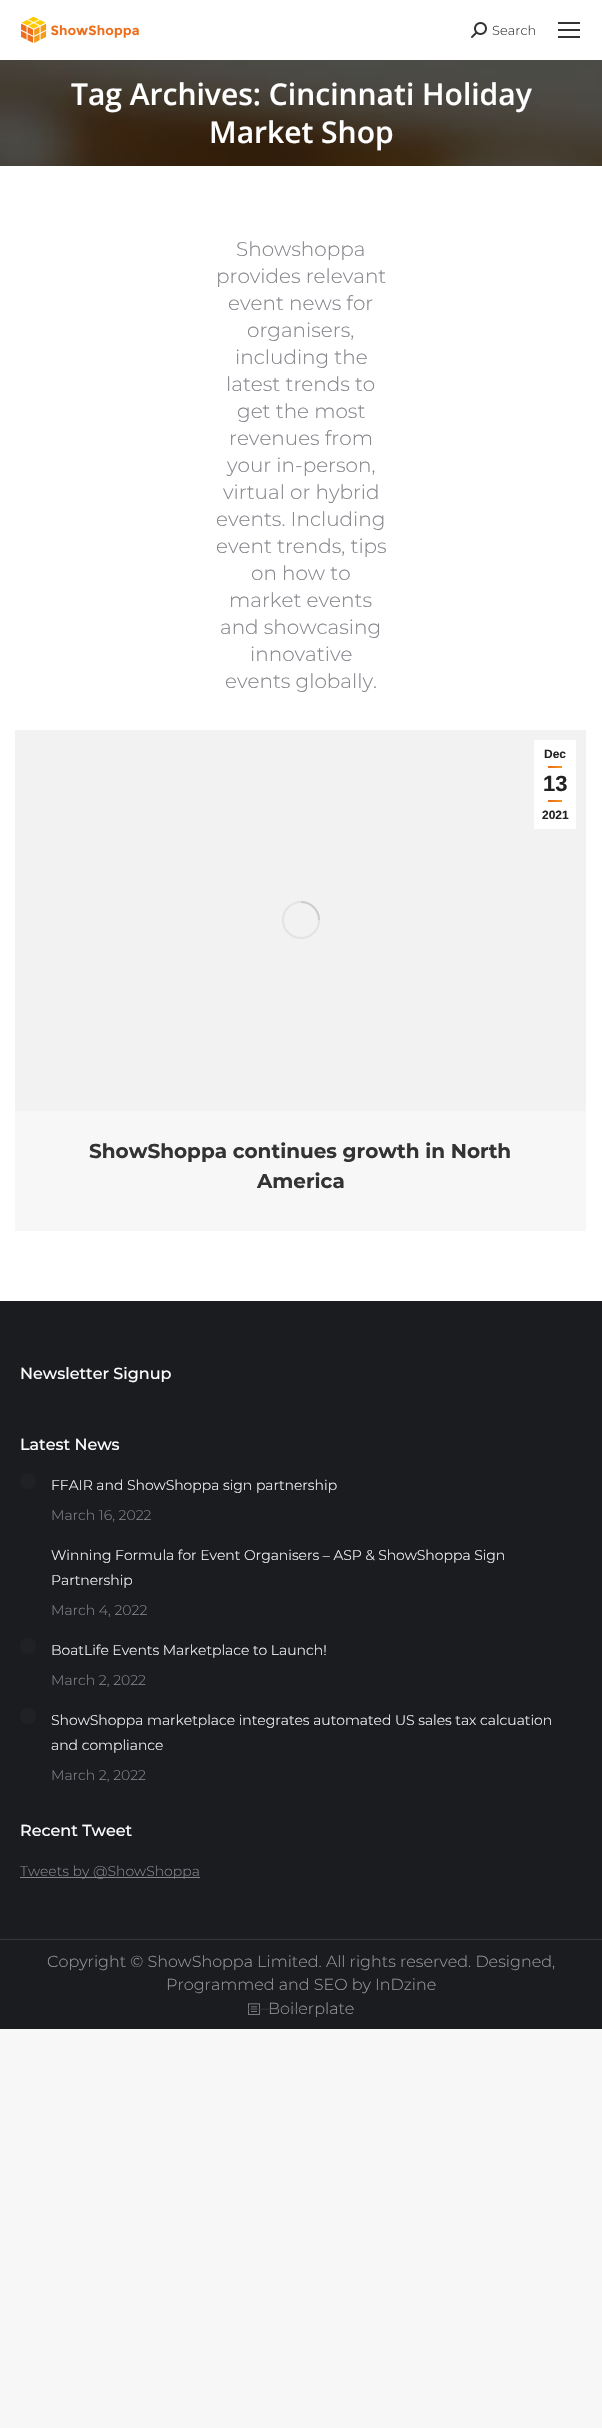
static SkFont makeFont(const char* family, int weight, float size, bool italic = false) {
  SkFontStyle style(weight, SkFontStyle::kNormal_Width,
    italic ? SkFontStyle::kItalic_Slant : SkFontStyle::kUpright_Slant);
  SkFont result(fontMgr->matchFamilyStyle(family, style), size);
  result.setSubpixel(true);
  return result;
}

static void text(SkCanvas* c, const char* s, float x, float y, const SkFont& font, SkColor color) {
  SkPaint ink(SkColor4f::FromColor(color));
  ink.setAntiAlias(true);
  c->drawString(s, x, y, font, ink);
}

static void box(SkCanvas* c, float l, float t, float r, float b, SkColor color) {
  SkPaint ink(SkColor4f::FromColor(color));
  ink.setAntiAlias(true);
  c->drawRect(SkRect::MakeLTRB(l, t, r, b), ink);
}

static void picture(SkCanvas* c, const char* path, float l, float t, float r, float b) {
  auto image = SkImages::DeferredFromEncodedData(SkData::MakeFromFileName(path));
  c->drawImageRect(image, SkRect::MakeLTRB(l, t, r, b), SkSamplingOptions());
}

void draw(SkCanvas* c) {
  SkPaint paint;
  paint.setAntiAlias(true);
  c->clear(0xfff7f7f7);
  box(c, 0, 0, 602, 1301, 0xffffffff);
  picture(c, "img_01.png", 21, 16, 139, 43);
  picture(c, "img_02.png", 471, 22, 487, 38);
  SkFont face1 = makeFont("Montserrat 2", 100, 13);
  text(c, "Search", 492, 35, face1, 0xff333333);
  box(c, 558, 22, 580, 24, 0xff333333);
  box(c, 558, 29, 580, 31, 0xff333333);
  box(c, 558, 36, 580, 38, 0xff333333);
  picture(c, "img_03.png", 0, 60, 602, 166);
  SkFont face2 = makeFont("Open Sans", 600, 30);
  text(c, "Tag Archives: Cincinnati Holiday", 71, 105, face2, 0xffffffff);
  text(c, "Market Shop", 209, 143, face2, 0xffffffff);
  SkFont face3 = makeFont("Montserrat 2", 100, 20);
  text(c, "Showshoppa", 236, 256, face3, 0xff85868c);
  text(c, "provides relevant", 216, 283, face3, 0xff85868c);
  text(c, "event news for", 228, 310, face3, 0xff85868c);
  text(c, "organisers,", 247, 337, face3, 0xff85868c);
  text(c, "including the", 235, 364, face3, 0xff85868c);
  text(c, "latest trends to", 226, 391, face3, 0xff85868c);
  text(c, "get the most", 237, 418, face3, 0xff85868c);
  text(c, "revenues from", 229, 445, face3, 0xff85868c);
  text(c, "your in-person,", 227, 472, face3, 0xff85868c);
  text(c, "virtual or hybrid", 223, 499, face3, 0xff85868c);
  text(c, "events. Including", 216, 526, face3, 0xff85868c);
  text(c, "event trends, tips", 216, 553, face3, 0xff85868c);
  text(c, "on how to", 251, 580, face3, 0xff85868c);
  text(c, "market events", 229, 607, face3, 0xff85868c);
  text(c, "and showcasing", 220, 634, face3, 0xff85868c);
  text(c, "innovative", 250, 661, face3, 0xff85868c);
  text(c, "events globally.", 225, 688, face3, 0xff85868c);
  box(c, 15, 1111, 586, 1231, 0xfff7f7f7);
  box(c, 15, 730, 586, 1111, 0xfff2f2f2);
  paint.setStyle(SkPaint::kStroke_Style);
  paint.setStrokeWidth(2);
  paint.setColor(0xffe3e3e4);
  c->drawCircle(301, 920, 18, paint);
  paint.setColor(0x4085868c);
  c->drawPath(SkPathBuilder().moveTo(319, 920).cubicTo(319, 910, 311, 902, 301, 902).detach(), paint);
  box(c, 534, 740, 576, 829, 0xffffffff);
  SkFont face4 = makeFont("Liberation Sans", 700, 12);
  text(c, "Dec", 544, 758, face4, 0xff222222);
  paint.setStyle(SkPaint::kFill_Style);
  {
    const SkColor colors[] = {0xffed6e1a, 0xfff59c19};
    const float stops[] = {0.19f, 1};
    const SkPoint ends[] = {{551, 763}, {559, 771}};
    paint.setShader(SkGradientShader::MakeLinear(ends, colors, stops, 2, SkTileMode::kClamp));
    paint.setAlpha(255);
  }
  c->drawRect(SkRect::MakeLTRB(548, 766, 562, 768), paint);
  SkFont face5 = makeFont("Liberation Sans", 700, 22);
  text(c, "13", 543, 791, face5, 0xff222222);
  {
    const SkColor colors[] = {0xffed6e1a, 0xfff59c19};
    const float stops[] = {0.19f, 1};
    const SkPoint ends[] = {{551, 797}, {559, 805}};
    paint.setShader(SkGradientShader::MakeLinear(ends, colors, stops, 2, SkTileMode::kClamp));
    paint.setAlpha(255);
  }
  c->drawRect(SkRect::MakeLTRB(548, 800, 562, 802), paint);
  text(c, "2021", 542, 819, face4, 0xff222222);
  SkFont face6 = makeFont("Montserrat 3", 100, 20);
  text(c, "ShowShoppa continues growth in North", 89, 1158, face6, 0xff333333);
  text(c, "America", 257, 1188, face6, 0xff333333);
  box(c, 0, 1301, 602, 2029, 0xff1a1c20);
  SkFont face7 = makeFont("Montserrat", 100, 16);
  text(c, "Newsletter Signup", 20, 1379, face7, 0xffffffff);
  text(c, "Latest News", 20, 1450, face7, 0xffffffff);
  paint.setShader(nullptr);
  paint.setColor(0xff1f2125);
  c->drawCircle(28, 1481, 8, paint);
  SkFont face8 = makeFont("Montserrat 2", 100, 14);
  text(c, "FFAIR and ShowShoppa sign partnership", 51, 1490, face8, 0xffffffff);
  text(c, "March 16, 2022", 51, 1520, face8, 0xff85868c);
  text(c, "Winning Formula for Event Organisers – ASP & ShowShoppa Sign", 51, 1560, face8, 0xffffffff);
  text(c, "Partnership", 51, 1585, face8, 0xffffffff);
  text(c, "March 4, 2022", 51, 1615, face8, 0xff85868c);
  c->drawCircle(28, 1646, 8, paint);
  text(c, "BoatLife Events Marketplace to Launch!", 51, 1655, face8, 0xffffffff);
  text(c, "March 2, 2022", 51, 1685, face8, 0xff85868c);
  c->drawCircle(28, 1716, 8, paint);
  text(c, "ShowShoppa marketplace integrates automated US sales tax calcuation", 51, 1725, face8, 0xffffffff);
  text(c, "and compliance", 51, 1750, face8, 0xffffffff);
  text(c, "March 2, 2022", 51, 1780, face8, 0xff85868c);
  text(c, "Recent Tweet", 20, 1836, face7, 0xffffffff);
  box(c, 20, 1877, 200, 1878, 0xff85868c);
  text(c, "Tweets by @ShowShoppa", 20, 1876, face8, 0xff85868c);
  box(c, 0, 1939, 602, 1940, 0xff35373b);
  SkFont face9 = makeFont("Montserrat 2", 100, 16);
  text(c, "Copyright © ShowShoppa Limited. All rights reserved. Designed,", 47, 1967, face9, 0xff999999);
  text(c, "Programmed and SEO by InDzine", 166, 1990, face9, 0xff999999);
  picture(c, "img_04.png", 248, 2003, 260, 2015);
  text(c, "Boilerplate", 268, 2014, face9, 0xff999999);
  SkFont face10 = makeFont("Montserrat 2", 100, 18);
  text(c, "———", 248, 2014, face10, 0xff37383b);
}
